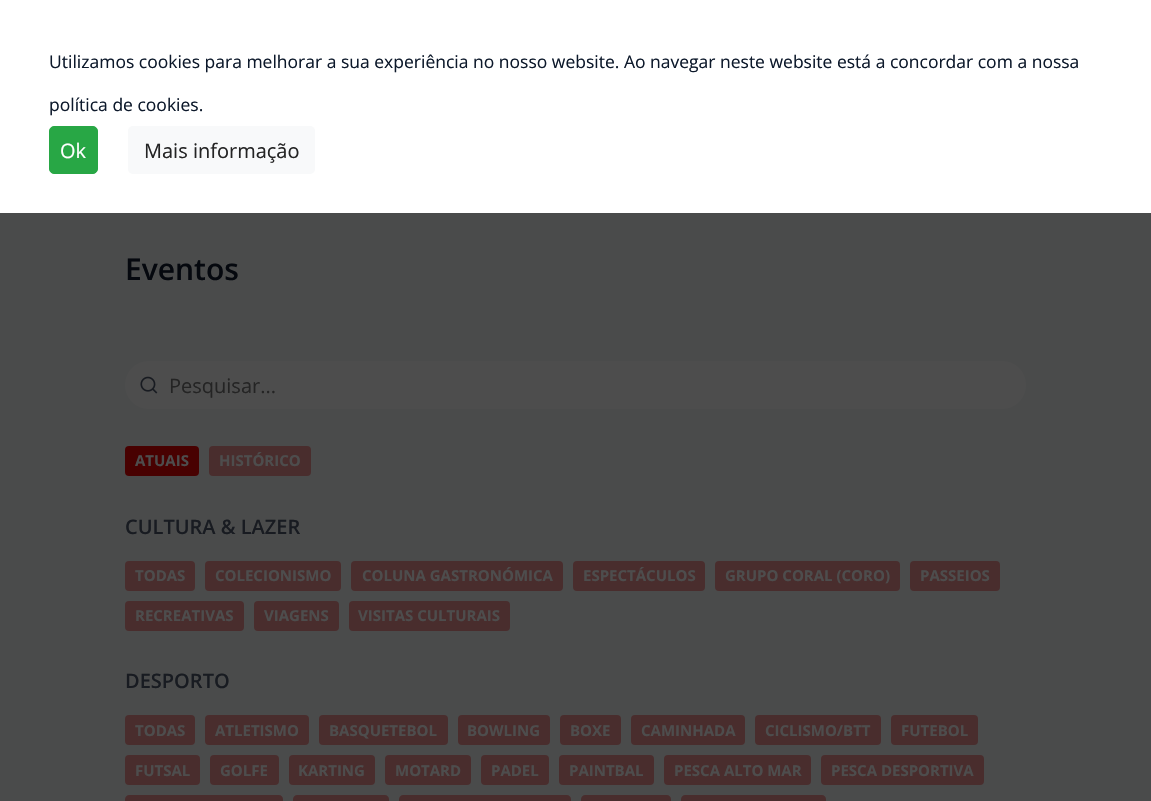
static SkFont makeFont(const char* family, int weight, float size, bool italic = false) {
  SkFontStyle style(weight, SkFontStyle::kNormal_Width,
    italic ? SkFontStyle::kItalic_Slant : SkFontStyle::kUpright_Slant);
  SkFont result(fontMgr->matchFamilyStyle(family, style), size);
  result.setSubpixel(true);
  return result;
}

static void text(SkCanvas* c, const char* s, float x, float y, const SkFont& font, SkColor color) {
  SkPaint ink(SkColor4f::FromColor(color));
  ink.setAntiAlias(true);
  c->drawString(s, x, y, font, ink);
}

static void box(SkCanvas* c, float l, float t, float r, float b, SkColor color) {
  SkPaint ink(SkColor4f::FromColor(color));
  ink.setAntiAlias(true);
  c->drawRect(SkRect::MakeLTRB(l, t, r, b), ink);
}

static void roundBox(SkCanvas* c, float l, float t, float r, float b, float radius, SkColor color) {
  SkPaint ink(SkColor4f::FromColor(color));
  ink.setAntiAlias(true);
  c->drawRoundRect(SkRect::MakeLTRB(l, t, r, b), radius, radius, ink);
}

static void picture(SkCanvas* c, const char* path, float l, float t, float r, float b) {
  auto image = SkImages::DeferredFromEncodedData(SkData::MakeFromFileName(path));
  c->drawImageRect(image, SkRect::MakeLTRB(l, t, r, b), SkSamplingOptions());
}

void draw(SkCanvas* c) {
  SkPaint paint;
  paint.setAntiAlias(true);
  c->clear(0xff4a4b4b);
  box(c, 0, 0, 1151, 213, 0xffffffff);
  SkFont face1 = makeFont("Open Sans", 400, 17.5f);
  text(c, "Utilizamos cookies para melhorar a sua experiência no nosso website. Ao navegar neste website está a concordar com a nossa", 49, 68, face1, 0xff0d192b);
  text(c, "política de cookies.", 49, 111, face1, 0xff0d192b);
  paint.setColor(0xff28a745);
  c->drawRoundRect(SkRect::MakeLTRB(49.5f, 126.5f, 97.5f, 173.5f), 4.5f, 4.5f, paint);
  paint.setStyle(SkPaint::kStroke_Style);
  paint.setStrokeWidth(1);
  c->drawRoundRect(SkRect::MakeLTRB(49.5f, 126.5f, 97.5f, 173.5f), 4.5f, 4.5f, paint);
  SkFont face2 = makeFont("Open Sans", 400, 20);
  text(c, "Ok", 60, 158, face2, 0xffffffff);
  roundBox(c, 128, 126, 315, 174, 5, 0xfff8f9fa);
  text(c, "Mais informação", 144, 158, face2, 0xff242424);
  SkFont face3 = makeFont("Open Sans", 600, 30);
  text(c, "Eventos", 125, 280, face3, 0xff05080e);
  roundBox(c, 125, 361, 1026, 409, 24, 0xff4d4d4d);
  picture(c, "img_01.png", 140, 376, 158, 394);
  text(c, "Pesquisar...", 169, 393, face2, 0xff242424);
  roundBox(c, 125, 446, 199, 476, 4, 0xff480101);
  SkFont face4 = makeFont("Open Sans", 700, 15);
  text(c, "ATUAIS", 135, 466, face4, 0xff4d4d4d);
  roundBox(c, 209, 446, 311, 476, 4, 0xff492d2d);
  text(c, "HISTÓRICO", 219, 466, face4, 0xff4d4d4d);
  SkFont face5 = makeFont("Open Sans", 600, 20);
  text(c, "CULTURA & LAZER", 125, 534, face5, 0xff181b21);
  roundBox(c, 125, 561, 195, 591, 4, 0xff492d2d);
  text(c, "TODAS", 135, 581, face4, 0xff4d4d4d);
  roundBox(c, 205, 561, 341, 591, 4, 0xff492d2d);
  text(c, "COLECIONISMO", 215, 581, face4, 0xff4d4d4d);
  roundBox(c, 351, 561, 563, 591, 4, 0xff492d2d);
  text(c, "COLUNA GASTRONÓMICA", 362, 581, face4, 0xff4d4d4d);
  roundBox(c, 573, 561, 705, 591, 4, 0xff492d2d);
  text(c, "ESPECTÁCULOS", 583, 581, face4, 0xff4d4d4d);
  roundBox(c, 715, 561, 900, 591, 4, 0xff492d2d);
  text(c, "GRUPO CORAL (CORO)", 725, 581, face4, 0xff4d4d4d);
  roundBox(c, 910, 561, 1000, 591, 4, 0xff492d2d);
  text(c, "PASSEIOS", 920, 581, face4, 0xff4d4d4d);
  roundBox(c, 125, 601, 244, 631, 4, 0xff492d2d);
  text(c, "RECREATIVAS", 135, 621, face4, 0xff4d4d4d);
  roundBox(c, 254, 601, 339, 631, 4, 0xff492d2d);
  text(c, "VIAGENS", 264, 621, face4, 0xff4d4d4d);
  roundBox(c, 349, 601, 510, 631, 4, 0xff492d2d);
  text(c, "VISITAS CULTURAIS", 358, 621, face4, 0xff4d4d4d);
  text(c, "DESPORTO", 125, 688, face5, 0xff181b21);
  roundBox(c, 125, 715, 195, 745, 4, 0xff492d2d);
  text(c, "TODAS", 135, 736, face4, 0xff4d4d4d);
  roundBox(c, 205, 715, 309, 745, 4, 0xff492d2d);
  text(c, "ATLETISMO", 215, 736, face4, 0xff4d4d4d);
  roundBox(c, 319, 715, 448, 745, 4, 0xff492d2d);
  text(c, "BASQUETEBOL", 329, 736, face4, 0xff4d4d4d);
  roundBox(c, 458, 715, 550, 745, 4, 0xff492d2d);
  text(c, "BOWLING", 467, 736, face4, 0xff4d4d4d);
  roundBox(c, 560, 715, 621, 745, 4, 0xff492d2d);
  text(c, "BOXE", 570, 736, face4, 0xff4d4d4d);
  roundBox(c, 631, 715, 745, 745, 4, 0xff492d2d);
  text(c, "CAMINHADA", 641, 736, face4, 0xff4d4d4d);
  roundBox(c, 755, 715, 881, 745, 4, 0xff492d2d);
  text(c, "CICLISMO/BTT", 765, 736, face4, 0xff4d4d4d);
  roundBox(c, 891, 715, 978, 745, 4, 0xff492d2d);
  text(c, "FUTEBOL", 901, 736, face4, 0xff4d4d4d);
  roundBox(c, 125, 755, 200, 785, 4, 0xff492d2d);
  text(c, "FUTSAL", 135, 776, face4, 0xff4d4d4d);
  roundBox(c, 210, 755, 279, 785, 4, 0xff492d2d);
  text(c, "GOLFE", 220, 776, face4, 0xff4d4d4d);
  roundBox(c, 289, 755, 375, 785, 4, 0xff492d2d);
  text(c, "KARTING", 298, 776, face4, 0xff4d4d4d);
  roundBox(c, 385, 755, 471, 785, 4, 0xff492d2d);
  text(c, "MOTARD", 395, 776, face4, 0xff4d4d4d);
  roundBox(c, 481, 755, 549, 785, 4, 0xff492d2d);
  text(c, "PADEL", 491, 776, face4, 0xff4d4d4d);
  roundBox(c, 559, 755, 654, 785, 4, 0xff492d2d);
  text(c, "PAINTBAL", 569, 776, face4, 0xff4d4d4d);
  roundBox(c, 664, 755, 811, 785, 4, 0xff492d2d);
  text(c, "PESCA ALTO MAR", 674, 776, face4, 0xff4d4d4d);
  roundBox(c, 821, 755, 984, 785, 4, 0xff492d2d);
  text(c, "PESCA DESPORTIVA", 831, 776, face4, 0xff4d4d4d);
  paint.setStyle(SkPaint::kFill_Style);
  paint.setColor(0xff492d2d);
  c->drawPath(SkPathBuilder().moveTo(129, 795).lineTo(279, 795).cubicTo(281, 795, 283, 797, 283, 799).lineTo(283, 801).lineTo(125, 801).lineTo(125, 799).cubicTo(125, 797, 127, 795, 129, 795).close().detach(), paint);
  c->drawPath(SkPathBuilder().moveTo(297, 795).lineTo(385, 795).cubicTo(387, 795, 389, 797, 389, 799).lineTo(389, 801).lineTo(293, 801).lineTo(293, 799).cubicTo(293, 797, 295, 795, 297, 795).close().detach(), paint);
  c->drawPath(SkPathBuilder().moveTo(403, 795).lineTo(567, 795).cubicTo(569, 795, 571, 797, 571, 799).lineTo(571, 801).lineTo(399, 801).lineTo(399, 799).cubicTo(399, 797, 401, 795, 403, 795).close().detach(), paint);
  c->drawPath(SkPathBuilder().moveTo(585, 795).lineTo(667, 795).cubicTo(669, 795, 671, 797, 671, 799).lineTo(671, 801).lineTo(581, 801).lineTo(581, 799).cubicTo(581, 797, 583, 795, 585, 795).close().detach(), paint);
  c->drawPath(SkPathBuilder().moveTo(685, 795).lineTo(822, 795).cubicTo(824, 795, 826, 797, 826, 799).lineTo(826, 801).lineTo(681, 801).lineTo(681, 799).cubicTo(681, 797, 683, 795, 685, 795).close().detach(), paint);
}
